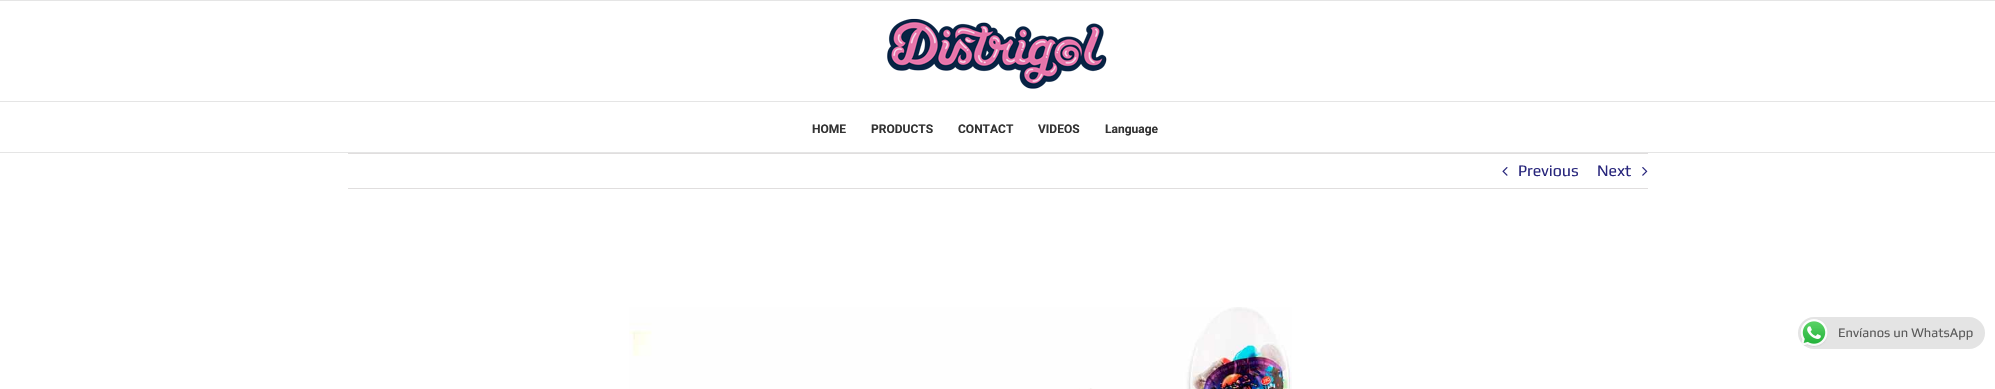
static SkFont makeFont(const char* family, int weight, float size, bool italic = false) {
  SkFontStyle style(weight, SkFontStyle::kNormal_Width,
    italic ? SkFontStyle::kItalic_Slant : SkFontStyle::kUpright_Slant);
  SkFont result(fontMgr->matchFamilyStyle(family, style), size);
  result.setSubpixel(true);
  return result;
}

static void text(SkCanvas* c, const char* s, float x, float y, const SkFont& font, SkColor color) {
  SkPaint ink(SkColor4f::FromColor(color));
  ink.setAntiAlias(true);
  c->drawString(s, x, y, font, ink);
}

static void box(SkCanvas* c, float l, float t, float r, float b, SkColor color) {
  SkPaint ink(SkColor4f::FromColor(color));
  ink.setAntiAlias(true);
  c->drawRect(SkRect::MakeLTRB(l, t, r, b), ink);
}

static void roundBox(SkCanvas* c, float l, float t, float r, float b, float radius, SkColor color) {
  SkPaint ink(SkColor4f::FromColor(color));
  ink.setAntiAlias(true);
  c->drawRoundRect(SkRect::MakeLTRB(l, t, r, b), radius, radius, ink);
}

static void picture(SkCanvas* c, const char* path, float l, float t, float r, float b) {
  auto image = SkImages::DeferredFromEncodedData(SkData::MakeFromFileName(path));
  c->drawImageRect(image, SkRect::MakeLTRB(l, t, r, b), SkSamplingOptions());
}

void draw(SkCanvas* c) {
  SkPaint paint;
  paint.setAntiAlias(true);
  c->clear(0xffffffff);
  box(c, 0, 0, 1995, 1, 0xffe5e5e5);
  box(c, 0, 101, 1995, 102, 0xffe5e5e5);
  picture(c, "img_01.png", 887, 18, 1107, 89);
  box(c, 0, 152, 1995, 153, 0xffe5e5e5);
  SkFont face1 = makeFont("Roboto", 700, 12);
  text(c, "HOME", 812, 133, face1, 0xff333333);
  text(c, "PRODUCTS", 871, 133, face1, 0xff333333);
  text(c, "CONTACT", 958, 133, face1, 0xff333333);
  text(c, "VIDEOS", 1038, 133, face1, 0xff333333);
  text(c, "Language", 1105, 133, face1, 0xff333333);
  box(c, 348, 153, 1648, 154, 0xffe0dede);
  box(c, 348, 188, 1648, 189, 0xffe0dede);
  picture(c, "img_02.png", 1502, 167, 1508, 176);
  SkFont face2 = makeFont("Play", 400, 16);
  text(c, "Previous", 1518, 176, face2, 0xff28267c);
  text(c, "Next", 1597, 176, face2, 0xff28267c);
  picture(c, "img_03.png", 1642, 167, 1648, 176);
  picture(c, "img_04.png", 629, 307, 1292, 389);
  roundBox(c, 1798, 317, 1985, 349, 16, 0xffe4e4e4);
  picture(c, "img_05.png", 1800, 319, 1828, 347);
  SkFont face3 = makeFont("Play", 400, 13);
  text(c, "Envíanos un WhatsApp", 1838, 337, face3, 0xff5b5b5b);
}
